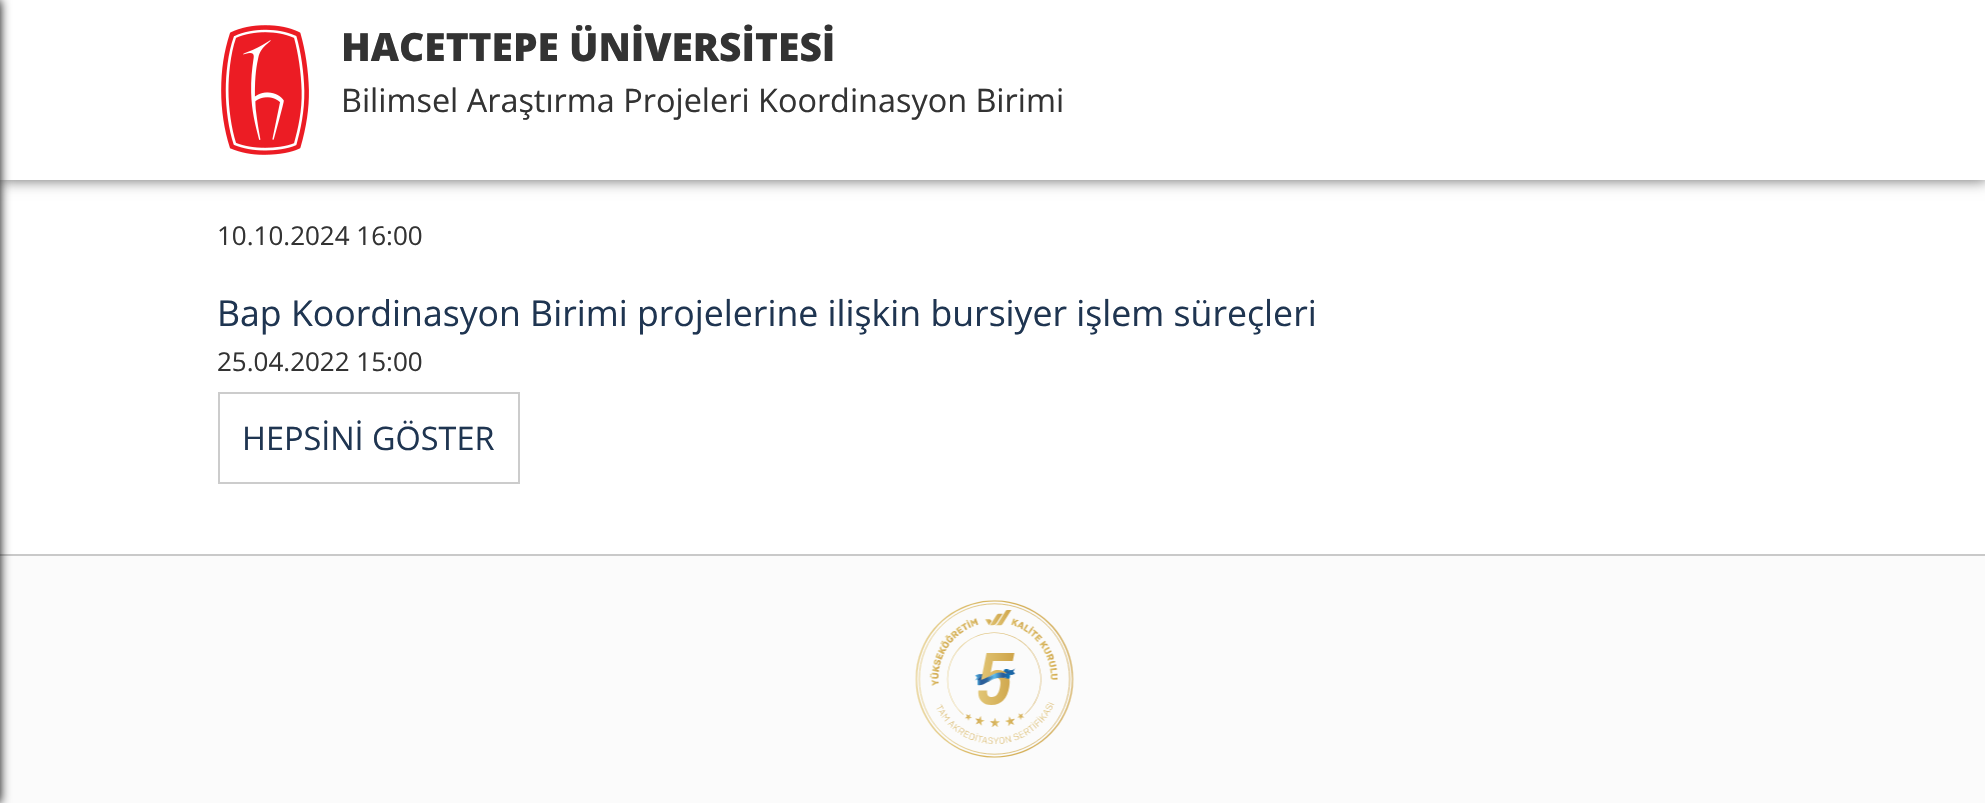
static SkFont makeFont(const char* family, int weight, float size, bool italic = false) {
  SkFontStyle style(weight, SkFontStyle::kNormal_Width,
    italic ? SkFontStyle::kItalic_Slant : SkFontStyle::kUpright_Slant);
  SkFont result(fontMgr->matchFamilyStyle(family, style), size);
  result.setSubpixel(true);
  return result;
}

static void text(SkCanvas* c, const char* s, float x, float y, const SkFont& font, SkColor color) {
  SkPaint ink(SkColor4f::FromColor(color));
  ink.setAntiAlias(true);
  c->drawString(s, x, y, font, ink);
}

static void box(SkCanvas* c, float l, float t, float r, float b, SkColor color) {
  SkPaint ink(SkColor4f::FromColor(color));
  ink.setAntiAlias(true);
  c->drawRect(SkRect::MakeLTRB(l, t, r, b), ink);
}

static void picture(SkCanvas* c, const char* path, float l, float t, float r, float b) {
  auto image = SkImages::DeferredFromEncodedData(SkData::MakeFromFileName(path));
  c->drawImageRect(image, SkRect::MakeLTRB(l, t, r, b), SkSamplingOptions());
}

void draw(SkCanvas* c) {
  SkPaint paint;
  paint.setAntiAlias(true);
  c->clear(0xffffffff);
  paint.setColor(0x99000000);
  paint.setMaskFilter(SkMaskFilter::MakeBlur(kNormal_SkBlurStyle, 7));
  c->drawRect(SkRect::MakeLTRB(0, 0, 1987, 180), paint);
  paint.setMaskFilter(nullptr);
  box(c, 0, 0, 1985, 180, 0xffffffff);
  box(c, 0, 556, 1985, 803, 0xfffbfbfb);
  box(c, 0, 554, 1985, 556, 0xffc9c9c9);
  paint.setColor(0xff000000);
  paint.setMaskFilter(SkMaskFilter::MakeBlur(kNormal_SkBlurStyle, 5.5f));
  c->drawRect(SkRect::MakeLTRB(-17, 0, 0, 803), paint);
  paint.setMaskFilter(nullptr);
  picture(c, "img_01.png", 221, 25, 309, 155);
  SkFont face1 = makeFont("Open Sans", 800, 38.9f);
  text(c, "HACETTEPE ÜNİVERSİTESİ", 341, 61, face1, 0xff333333);
  SkFont face2 = makeFont("Open Sans", 400, 32.4f);
  text(c, "Bilimsel Araştırma Projeleri Koordinasyon Birimi", 341, 112, face2, 0xff333333);
  SkFont face3 = makeFont("Open Sans", 400, 26);
  text(c, "10.10.2024 16:00", 217, 245, face3, 0xff333333);
  SkFont face4 = makeFont("Open Sans", 400, 35.65f);
  text(c, "Bap Koordinasyon Birimi projelerine ilişkin bursiyer işlem süreçleri", 217, 326, face4, 0xff1f3551);
  text(c, "25.04.2022 15:00", 217, 371, face3, 0xff333333);
  paint.setStyle(SkPaint::kStroke_Style);
  paint.setStrokeWidth(2);
  paint.setColor(0xffcccccc);
  c->drawRect(SkRect::MakeLTRB(219, 393, 519, 483), paint);
  text(c, "HEPSİNİ GÖSTER", 242, 450, face2, 0xff1f3551);
  picture(c, "img_02.png", 915, 600, 1074, 758);
}
